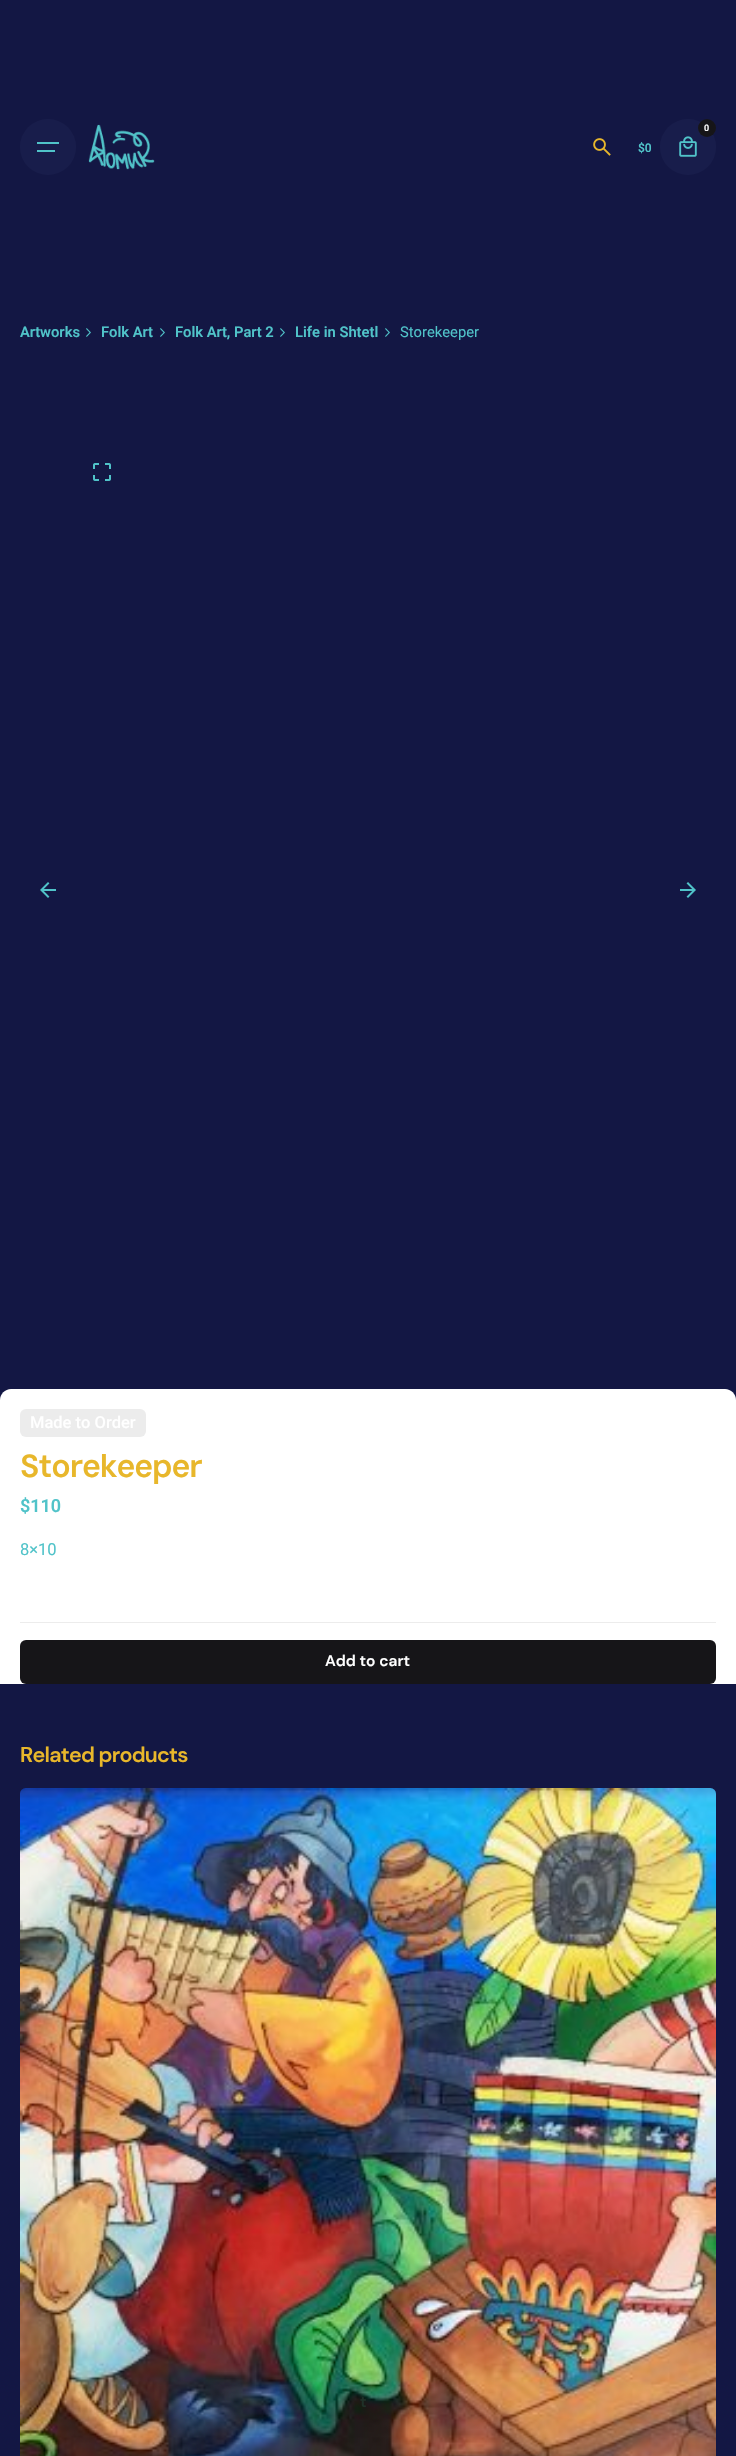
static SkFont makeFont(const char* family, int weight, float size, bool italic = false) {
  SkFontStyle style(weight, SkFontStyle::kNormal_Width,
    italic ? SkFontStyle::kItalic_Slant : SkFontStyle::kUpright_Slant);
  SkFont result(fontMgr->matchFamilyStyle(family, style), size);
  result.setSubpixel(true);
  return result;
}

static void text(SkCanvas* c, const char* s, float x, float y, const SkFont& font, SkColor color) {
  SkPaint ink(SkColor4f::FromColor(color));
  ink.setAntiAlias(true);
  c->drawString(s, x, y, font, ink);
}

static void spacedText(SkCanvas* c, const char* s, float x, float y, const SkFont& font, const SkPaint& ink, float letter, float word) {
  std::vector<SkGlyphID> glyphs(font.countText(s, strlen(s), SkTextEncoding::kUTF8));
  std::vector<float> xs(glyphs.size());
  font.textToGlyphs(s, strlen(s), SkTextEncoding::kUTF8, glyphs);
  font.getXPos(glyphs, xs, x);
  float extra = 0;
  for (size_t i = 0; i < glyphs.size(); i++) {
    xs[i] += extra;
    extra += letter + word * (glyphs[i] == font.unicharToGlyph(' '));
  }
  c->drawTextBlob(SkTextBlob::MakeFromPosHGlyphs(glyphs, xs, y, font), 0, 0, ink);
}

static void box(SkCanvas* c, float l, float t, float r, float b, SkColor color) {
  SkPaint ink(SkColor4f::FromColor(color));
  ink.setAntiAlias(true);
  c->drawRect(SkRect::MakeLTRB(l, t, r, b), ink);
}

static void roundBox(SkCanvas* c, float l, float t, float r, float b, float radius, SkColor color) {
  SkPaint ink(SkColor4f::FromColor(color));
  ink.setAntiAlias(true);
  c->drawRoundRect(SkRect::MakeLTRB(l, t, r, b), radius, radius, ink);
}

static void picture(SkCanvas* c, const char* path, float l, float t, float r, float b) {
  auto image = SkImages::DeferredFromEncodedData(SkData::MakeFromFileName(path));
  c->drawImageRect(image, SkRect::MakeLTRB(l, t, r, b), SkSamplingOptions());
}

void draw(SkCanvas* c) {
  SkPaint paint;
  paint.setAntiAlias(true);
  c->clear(0xff131744);
  paint.setColor(0xff181d4b);
  c->drawCircle(48, 147, 28, paint);
  box(c, 37, 142, 59, 144, 0xff50c3c9);
  box(c, 37, 150, 55, 152, 0xff50c3c9);
  picture(c, "img_01.png", 88, 124, 155, 170);
  picture(c, "img_02.png", 593, 138, 611, 156);
  c->drawCircle(688, 147, 28, paint);
  picture(c, "img_03.png", 679, 136, 697, 157);
  paint.setColor(0xff161518);
  c->drawCircle(707, 128, 9, paint);
  SkFont face1 = makeFont("Roboto", 600, 9);
  text(c, "0", 704, 131, face1, 0xffffffff);
  SkFont face2 = makeFont("Roboto", 600, 12);
  text(c, "$0", 638, 152, face2, 0xff50c3c9);
  SkFont face3 = makeFont("Roboto", 600, 14.75f);
  text(c, "Artworks", 20, 337, face3, 0xff50c3c9);
  picture(c, "img_04.png", 86, 328, 91, 337);
  text(c, "Folk Art", 101, 337, face3, 0xff50c3c9);
  picture(c, "img_04.png", 160, 328, 165, 337);
  text(c, "Folk Art, Part 2", 175, 337, face3, 0xff50c3c9);
  picture(c, "img_04.png", 280, 328, 285, 337);
  text(c, "Life in Shtetl", 295, 337, face3, 0xff50c3c9);
  picture(c, "img_04.png", 385, 328, 390, 337);
  SkFont face4 = makeFont("Roboto", 400, 14.75f);
  text(c, "Storekeeper", 400, 337, face4, 0xff50c3c9);
  picture(c, "img_05.png", 93, 463, 111, 481);
  picture(c, "img_06.png", 40, 882, 56, 898);
  picture(c, "img_07.png", 680, 882, 696, 898);
  paint.setColor(0xffffffff);
  c->drawPath(SkPathBuilder().moveTo(11, 1389).lineTo(725, 1389).cubicTo(731, 1389, 736, 1394, 736, 1400).lineTo(736, 1684).lineTo(0, 1684).lineTo(0, 1400).cubicTo(0, 1394, 5, 1389, 11, 1389).close().detach(), paint);
  roundBox(c, 20, 1409, 146, 1437, 6, 0xffececec);
  SkFont face5 = makeFont("Roboto", 500, 16.5f);
  text(c, "Made to Order", 30, 1428, face5, 0xffffffff);
  SkFont face6 = makeFont("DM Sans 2", 600, 32);
  paint.setColor(0xffe8b72b);
  spacedText(c, "Storekeeper", 20, 1477, face6, paint, -1.1f, 0);
  SkFont face7 = makeFont("Roboto", 600, 18);
  text(c, "$110", 20, 1512, face7, 0xff50c3c9);
  SkFont face8 = makeFont("Roboto", 400, 16.5f);
  text(c, "8×10", 20, 1555, face8, 0xff50c3c9);
  box(c, 20, 1622, 716, 1623, 0xffececec);
  roundBox(c, 20, 1640, 716, 1684, 6, 0xff161518);
  SkFont face9 = makeFont("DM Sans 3", 600, 15.5f);
  text(c, "Add to cart", 325, 1666, face9, 0xffffffff);
  SkFont face10 = makeFont("DM Sans", 600, 21.5f);
  spacedText(c, "Related products", 20, 1762, face10, paint, -0.75f, 0);
  picture(c, "img_08.png", 20, 1788, 716, 2456);
  text(c, "t", 360, 2407, face9, 0xff1f3128);
}
